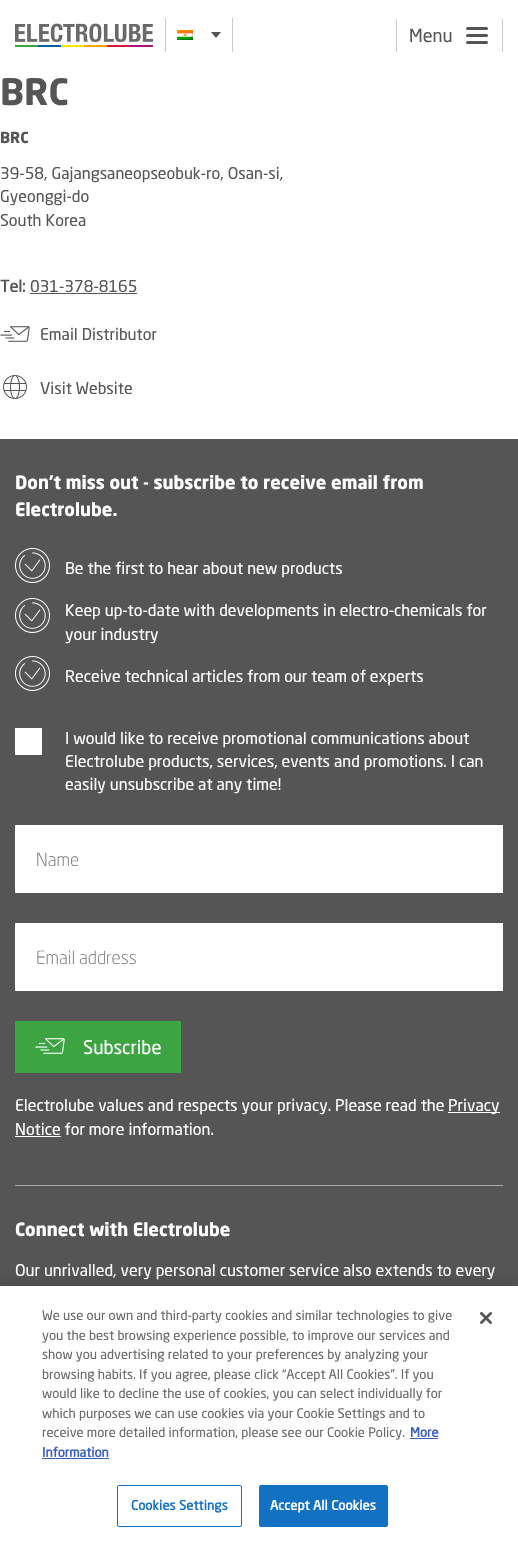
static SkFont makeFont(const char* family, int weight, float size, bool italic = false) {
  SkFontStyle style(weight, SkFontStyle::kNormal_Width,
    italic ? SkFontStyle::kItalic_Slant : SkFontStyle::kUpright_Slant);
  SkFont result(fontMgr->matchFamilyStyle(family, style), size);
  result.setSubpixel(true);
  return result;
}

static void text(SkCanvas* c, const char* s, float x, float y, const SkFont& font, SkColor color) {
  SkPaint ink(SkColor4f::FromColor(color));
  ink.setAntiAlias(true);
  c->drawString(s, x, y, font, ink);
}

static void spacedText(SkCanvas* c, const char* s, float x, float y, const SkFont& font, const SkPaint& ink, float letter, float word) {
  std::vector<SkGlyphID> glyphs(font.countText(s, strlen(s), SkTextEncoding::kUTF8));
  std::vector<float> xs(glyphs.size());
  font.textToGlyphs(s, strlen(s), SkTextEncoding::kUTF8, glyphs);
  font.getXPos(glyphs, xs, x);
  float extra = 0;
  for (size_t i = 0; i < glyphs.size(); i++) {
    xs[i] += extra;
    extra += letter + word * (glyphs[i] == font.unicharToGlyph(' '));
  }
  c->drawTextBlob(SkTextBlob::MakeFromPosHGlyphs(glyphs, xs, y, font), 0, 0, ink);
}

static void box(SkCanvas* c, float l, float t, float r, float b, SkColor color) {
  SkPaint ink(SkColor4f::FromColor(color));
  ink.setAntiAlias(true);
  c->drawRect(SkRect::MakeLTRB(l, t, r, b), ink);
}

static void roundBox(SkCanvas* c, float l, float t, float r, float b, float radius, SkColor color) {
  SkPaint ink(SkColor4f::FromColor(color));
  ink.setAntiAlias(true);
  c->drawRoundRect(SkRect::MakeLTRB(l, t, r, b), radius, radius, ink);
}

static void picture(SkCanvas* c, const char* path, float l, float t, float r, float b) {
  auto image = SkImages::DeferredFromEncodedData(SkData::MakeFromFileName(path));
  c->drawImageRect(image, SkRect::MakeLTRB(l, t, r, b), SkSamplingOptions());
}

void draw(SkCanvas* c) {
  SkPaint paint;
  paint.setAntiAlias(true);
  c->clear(0xffffffff);
  picture(c, "img_01.png", 15, 23, 153, 47);
  box(c, 232, 18, 233, 52, 0xffcccccc);
  box(c, 165, 18, 166, 52, 0xffcccccc);
  picture(c, "img_02.png", 177, 30, 193, 40);
  paint.setColor(0xff555555);
  c->drawPath(SkPathBuilder().moveTo(211, 32).lineTo(221, 32).lineTo(216, 38).close().detach(), paint);
  box(c, 502, 19, 503, 52, 0xffcccccc);
  box(c, 396, 19, 397, 52, 0xffcccccc);
  SkFont face1 = makeFont("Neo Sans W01", 400, 18);
  text(c, "Menu", 409, 42, face1, 0xff555555);
  roundBox(c, 466, 27, 488, 30, 1.5f, 0xff555555);
  roundBox(c, 466, 34, 488, 37, 1.5f, 0xff555555);
  roundBox(c, 466, 41, 488, 44, 1.5f, 0xff555555);
  SkFont face2 = makeFont("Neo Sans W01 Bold", 700, 36);
  text(c, "BRC", 0, 105, face2, 0xff555555);
  SkFont face3 = makeFont("Neo Sans W01 Bold", 700, 15);
  text(c, "BRC", 0, 143, face3, 0xff555555);
  SkFont face4 = makeFont("Neo Sans W01", 400, 16);
  text(c, "39-58, Gajangsaneopseobuk-ro, Osan-si,", 0, 179, face4, 0xff555555);
  text(c, "Gyeonggi-do", 0, 202, face4, 0xff555555);
  text(c, "South Korea", 0, 226, face4, 0xff555555);
  SkFont face5 = makeFont("Neo Sans W01", 700, 16);
  text(c, "Tel:", 0, 292, face5, 0xff555555);
  text(c, "031-378-8165", 30, 292, face4, 0xff555555);
  box(c, 30, 293, 137, 294, 0xff555555);
  picture(c, "img_03.png", 0, 326, 30, 342);
  text(c, "Email Distributor", 40, 340, face4, 0xff555555);
  picture(c, "img_04.png", 3, 375, 27, 399);
  text(c, "Visit Website", 40, 394, face4, 0xff555555);
  box(c, 0, 439, 518, 1286, 0xff555555);
  box(c, 15, 1185, 503, 1186, 0xffaaaaaa);
  SkFont face6 = makeFont("Neo Sans W01 Bold", 700, 18);
  text(c, "Don't miss out - subscribe to receive email from", 15, 489, face6, 0xffffffff);
  text(c, "Electrolube.", 15, 516, face6, 0xffffffff);
  picture(c, "img_05.png", 15, 548, 50, 583);
  text(c, "Be the first to hear about new products", 65, 574, face4, 0xffffffff);
  picture(c, "img_05.png", 15, 598, 50, 633);
  text(c, "Keep up-to-date with developments in electro-chemicals for", 65, 616, face4, 0xffffffff);
  text(c, "your industry", 65, 640, face4, 0xffffffff);
  picture(c, "img_05.png", 15, 656, 50, 691);
  text(c, "Receive technical articles from our team of experts", 65, 682, face4, 0xffffffff);
  box(c, 15, 728, 42, 755, 0xffffffff);
  text(c, "I would like to receive promotional communications about", 65, 744, face4, 0xffffffff);
  text(c, "Electrolube products, services, events and promotions. I can", 65, 767, face4, 0xffffffff);
  text(c, "easily unsubscribe at any time!", 65, 790, face4, 0xffffffff);
  box(c, 15, 825, 503, 893, 0xffffffff);
  SkFont face7 = makeFont("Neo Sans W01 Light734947", 300, 18);
  text(c, "Name", 36, 866, face7, 0xff757575);
  box(c, 15, 923, 503, 991, 0xffffffff);
  text(c, "Email address", 36, 964, face7, 0xff757575);
  box(c, 15, 1021, 181, 1073, 0xff3ca542);
  picture(c, "img_06.png", 35, 1038, 65, 1054);
  SkFont face8 = makeFont("Neo Sans W01", 400, 18.5f);
  text(c, "Subscribe", 83, 1054, face8, 0xffffffff);
  text(c, "Electrolube values and respects your privacy. Please read the", 15, 1111, face4, 0xffffffff);
  box(c, 448, 1112, 500, 1113, 0xffffffff);
  text(c, "Privacy", 448, 1111, face4, 0xffffffff);
  text(c, "Notice for more information.", 15, 1135, face4, 0xffffffff);
  box(c, 15, 1136, 61, 1137, 0xffffffff);
  text(c, "Connect with Electrolube", 15, 1236, face6, 0xffffffff);
  text(c, "Our unrivalled, very personal customer service also extends to every", 15, 1276, face4, 0xffffffff);
  paint.setColor(0x33000000);
  paint.setMaskFilter(SkMaskFilter::MakeBlur(kNormal_SkBlurStyle, 9));
  c->drawRect(SkRect::MakeLTRB(0, 1286, 518, 1543), paint);
  paint.setMaskFilter(nullptr);
  box(c, 0, 1286, 518, 1543, 0xffffffff);
  SkFont face9 = makeFont("Neo Sans W01", 400, 13);
  text(c, "We use our own and third-party cookies and similar technologies to give", 42, 1320, face9, 0xff696969);
  text(c, "you the best browsing experience possible, to improve our services and", 42, 1340, face9, 0xff696969);
  text(c, "show you advertising related to your preferences by analyzing your", 42, 1359, face9, 0xff696969);
  text(c, "browsing habits. If you agree, please click “Accept All Cookies”. If you", 42, 1379, face9, 0xff696969);
  text(c, "would like to decline the use of cookies, you can select individually for", 42, 1398, face9, 0xff696969);
  text(c, "which purposes we can use cookies via your Cookie Settings and to", 42, 1418, face9, 0xff696969);
  text(c, "receive more detailed information, please see our Cookie Policy.", 42, 1437, face9, 0xff696969);
  SkFont face10 = makeFont("Neo Sans W01", 700, 13);
  text(c, "More", 410, 1437, face10, 0xff3860be);
  box(c, 410, 1438, 438, 1439, 0xff3860be);
  text(c, "Information", 42, 1457, face10, 0xff3860be);
  box(c, 42, 1458, 109, 1459, 0xff3860be);
  paint.setStyle(SkPaint::kStroke_Style);
  paint.setStrokeWidth(1);
  paint.setColor(0xff1371c3);
  c->drawRoundRect(SkRect::MakeLTRB(117.5f, 1485.5f, 241.5f, 1526.5f), 1.5f, 1.5f, paint);
  paint.setStyle(SkPaint::kFill_Style);
  spacedText(c, "Cookies Settings", 131, 1510, face10, paint, 0.1f, 0);
  c->drawRoundRect(SkRect::MakeLTRB(259.5f, 1485.5f, 387.5f, 1526.5f), 1.5f, 1.5f, paint);
  paint.setStyle(SkPaint::kStroke_Style);
  c->drawRoundRect(SkRect::MakeLTRB(259.5f, 1485.5f, 387.5f, 1526.5f), 1.5f, 1.5f, paint);
  paint.setStyle(SkPaint::kFill_Style);
  paint.setColor(0xffffffff);
  spacedText(c, "Accept All Cookies", 270, 1510, face10, paint, 0.1f, 0);
  picture(c, "img_07.png", 480, 1312, 492, 1324);
}
